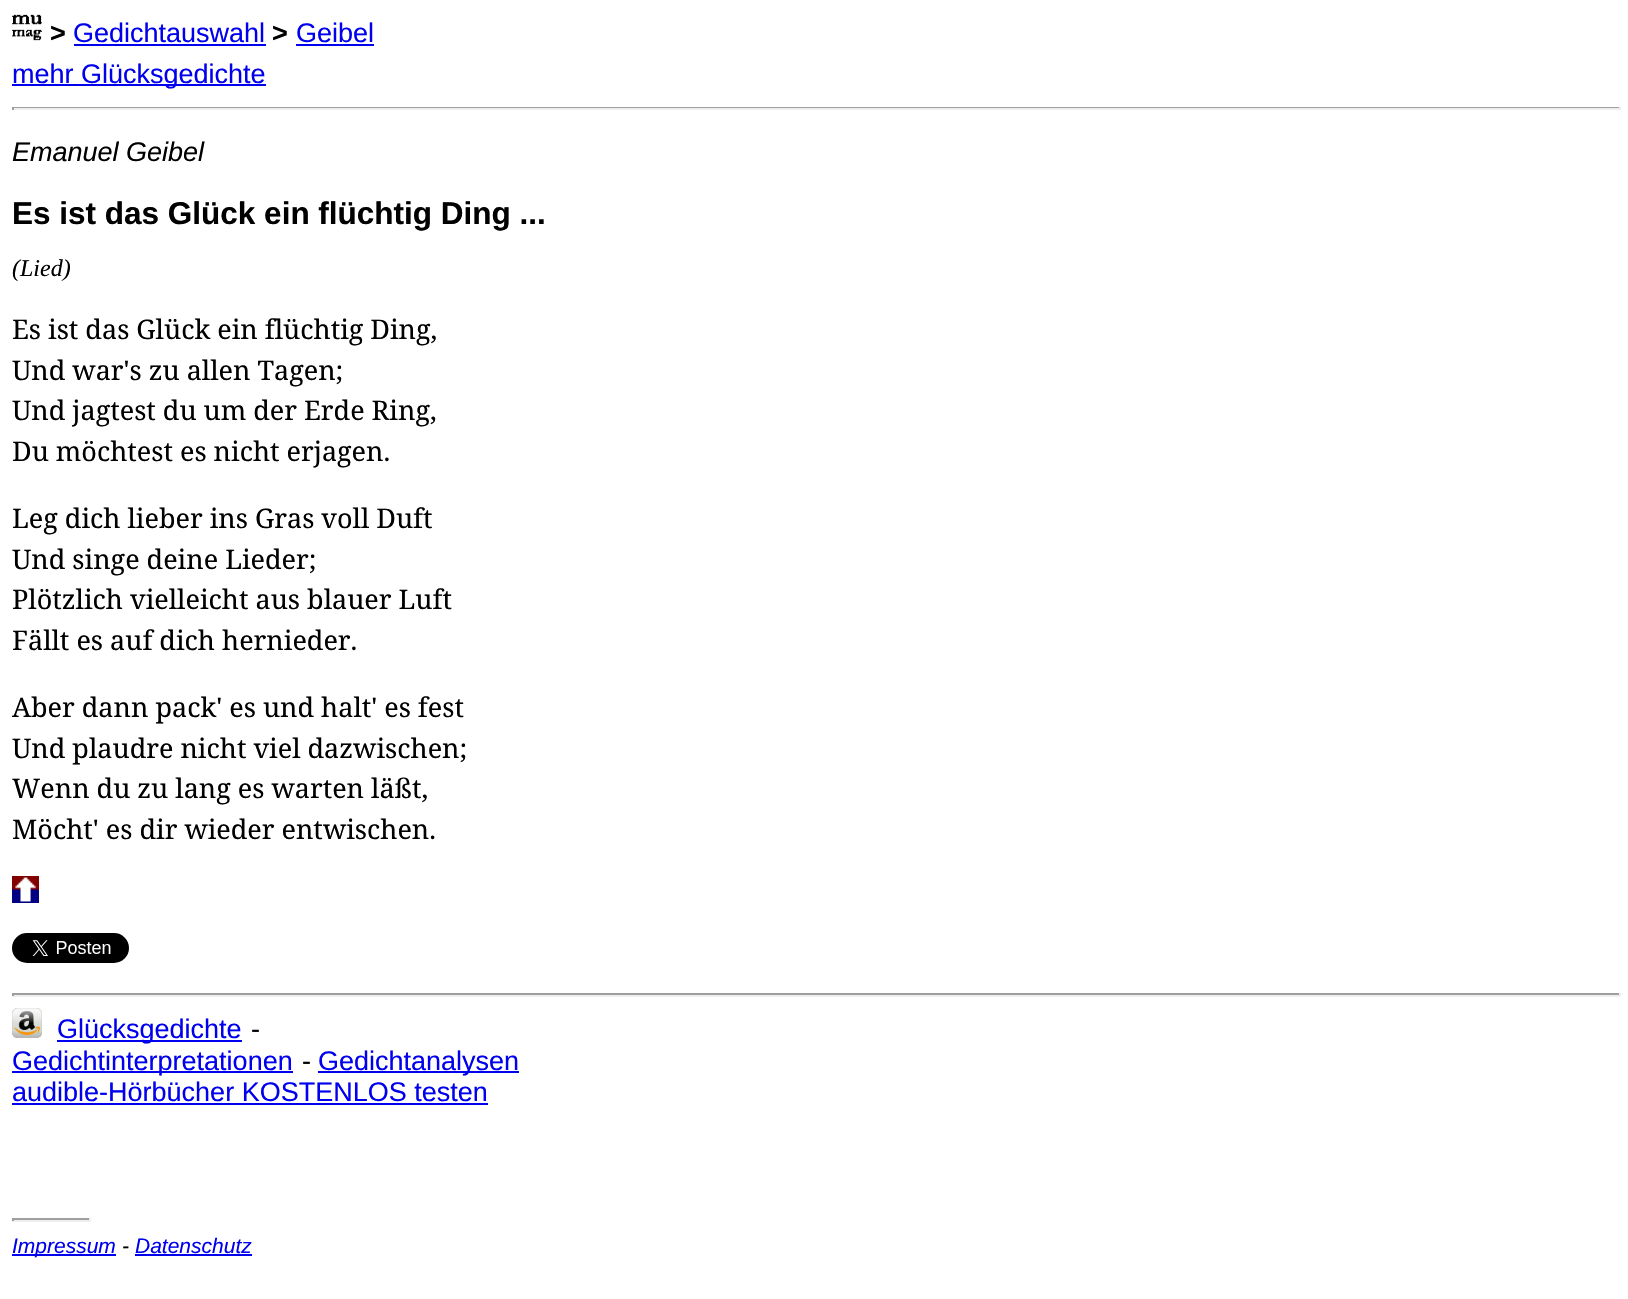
static SkFont makeFont(const char* family, int weight, float size, bool italic = false) {
  SkFontStyle style(weight, SkFontStyle::kNormal_Width,
    italic ? SkFontStyle::kItalic_Slant : SkFontStyle::kUpright_Slant);
  SkFont result(fontMgr->matchFamilyStyle(family, style), size);
  result.setSubpixel(true);
  return result;
}

static void text(SkCanvas* c, const char* s, float x, float y, const SkFont& font, SkColor color) {
  SkPaint ink(SkColor4f::FromColor(color));
  ink.setAntiAlias(true);
  c->drawString(s, x, y, font, ink);
}

static void box(SkCanvas* c, float l, float t, float r, float b, SkColor color) {
  SkPaint ink(SkColor4f::FromColor(color));
  ink.setAntiAlias(true);
  c->drawRect(SkRect::MakeLTRB(l, t, r, b), ink);
}

static void picture(SkCanvas* c, const char* path, float l, float t, float r, float b) {
  auto image = SkImages::DeferredFromEncodedData(SkData::MakeFromFileName(path));
  c->drawImageRect(image, SkRect::MakeLTRB(l, t, r, b), SkSamplingOptions());
}

void draw(SkCanvas* c) {
  SkPaint paint;
  paint.setAntiAlias(true);
  c->clear(0xffffffff);
  picture(c, "img_01.png", 12, 14, 42, 41);
  SkFont face1 = makeFont("Liberation Sans", 700, 27);
  text(c, ">", 50, 42, face1, 0xff000000);
  SkFont face2 = makeFont("Liberation Sans", 400, 27);
  text(c, "Gedichtauswahl", 73, 42, face2, 0xff0000ee);
  box(c, 74, 44, 266, 46, 0xff0000ee);
  text(c, ">", 272, 42, face1, 0xff000000);
  text(c, "Geibel", 296, 42, face2, 0xff0000ee);
  box(c, 296, 44, 374, 46, 0xff0000ee);
  box(c, 12, 84, 266, 86, 0xff0000ee);
  text(c, "mehr Glücksgedichte", 12, 83, face2, 0xff0000ee);
  box(c, 12, 107, 1620, 108, 0xff9f9f9f);
  box(c, 1619, 107, 1621, 110, 0xffeeeeee);
  box(c, 12, 108, 1620, 110, 0xffeeeeee);
  box(c, 12, 107, 14, 110, 0xff9f9f9f);
  SkFont face3 = makeFont("Liberation Sans", 400, 27, true);
  text(c, "Emanuel Geibel", 12, 161, face3, 0xff000000);
  SkFont face4 = makeFont("Liberation Sans", 700, 31.5f);
  text(c, "Es ist das Glück ein flüchtig Ding ...", 12, 224, face4, 0xff000000);
  SkFont face5 = makeFont("Liberation Serif", 400, 24, true);
  text(c, "(Lied)", 12, 276, face5, 0xff000000);
  SkFont face6 = makeFont("Noto Serif", 400, 27);
  text(c, "Es ist das Glück ein flüchtig Ding,", 12, 339, face6, 0xff000000);
  text(c, "Und war's zu allen Tagen;", 12, 380, face6, 0xff000000);
  text(c, "Und jagtest du um der Erde Ring,", 12, 420, face6, 0xff000000);
  text(c, "Du möchtest es nicht erjagen.", 12, 461, face6, 0xff000000);
  text(c, "Leg dich lieber ins Gras voll Duft", 12, 528, face6, 0xff000000);
  text(c, "Und singe deine Lieder;", 12, 569, face6, 0xff000000);
  text(c, "Plötzlich vielleicht aus blauer Luft", 12, 609, face6, 0xff000000);
  text(c, "Fällt es auf dich hernieder.", 12, 650, face6, 0xff000000);
  text(c, "Aber dann pack' es und halt' es fest", 12, 717, face6, 0xff000000);
  text(c, "Und plaudre nicht viel dazwischen;", 12, 758, face6, 0xff000000);
  text(c, "Wenn du zu lang es warten läßt,", 12, 798, face6, 0xff000000);
  text(c, "Möcht' es dir wieder entwischen.", 12, 839, face6, 0xff000000);
  picture(c, "img_02.png", 12, 876, 39, 903);
  picture(c, "img_03.png", 12, 933, 129, 963);
  box(c, 12, 993, 1620, 995, 0xff9f9f9f);
  box(c, 1619, 993, 1621, 996, 0xffeeeeee);
  box(c, 12, 995, 1620, 997, 0xffeeeeee);
  box(c, 12, 993, 14, 996, 0xff9f9f9f);
  picture(c, "img_04.png", 12, 1008, 42, 1038);
  box(c, 57, 1040, 242, 1042, 0xff0000ee);
  text(c, "Glücksgedichte", 57, 1038, face2, 0xff0000ee);
  text(c, "-", 251, 1038, face2, 0xff000000);
  box(c, 12, 1071, 293, 1073, 0xff0000ee);
  text(c, "Gedichtinterpretationen", 12, 1070, face2, 0xff0000ee);
  text(c, "-", 302, 1070, face2, 0xff000000);
  box(c, 318, 1071, 519, 1073, 0xff0000ee);
  text(c, "Gedichtanalysen", 318, 1070, face2, 0xff0000ee);
  text(c, "audible-Hörbücher KOSTENLOS testen", 12, 1101, face2, 0xff0000ee);
  box(c, 12, 1103, 488, 1105, 0xff0000ee);
  box(c, 12, 1218, 90, 1220, 0xff9f9f9f);
  box(c, 89, 1218, 91, 1221, 0xffeeeeee);
  box(c, 12, 1220, 90, 1222, 0xffeeeeee);
  box(c, 12, 1218, 14, 1221, 0xff9f9f9f);
  box(c, 12, 1254, 116, 1256, 0xff0000ee);
  SkFont face7 = makeFont("Liberation Sans", 400, 21, true);
  text(c, "Impressum", 12, 1253, face7, 0xff0000ee);
  text(c, "-", 122, 1253, face7, 0xff000000);
  text(c, "Datenschutz", 135, 1253, face7, 0xff0000ee);
  box(c, 135, 1254, 252, 1256, 0xff0000ee);
}
